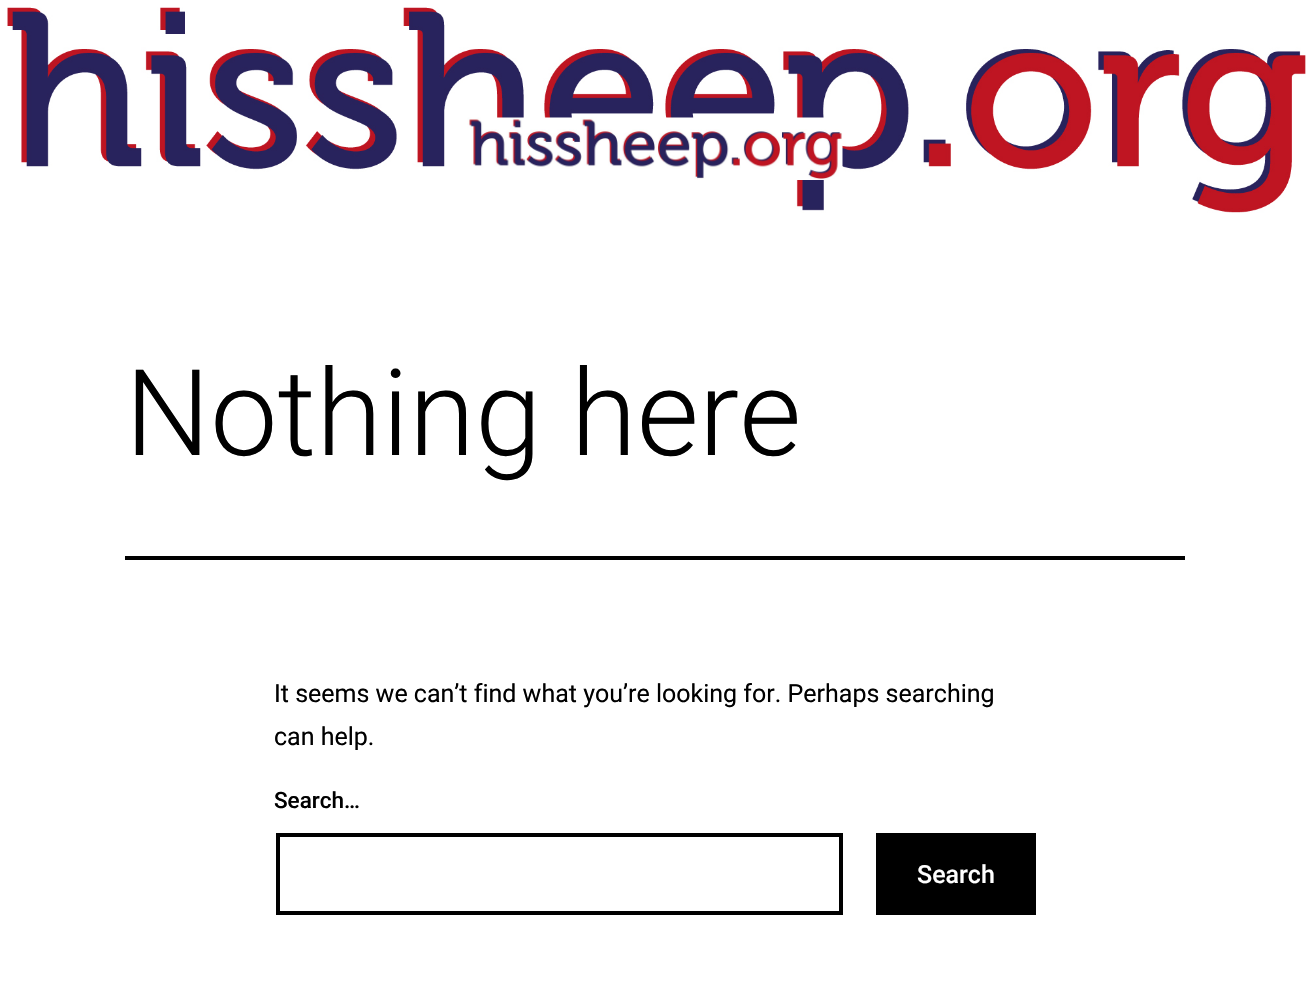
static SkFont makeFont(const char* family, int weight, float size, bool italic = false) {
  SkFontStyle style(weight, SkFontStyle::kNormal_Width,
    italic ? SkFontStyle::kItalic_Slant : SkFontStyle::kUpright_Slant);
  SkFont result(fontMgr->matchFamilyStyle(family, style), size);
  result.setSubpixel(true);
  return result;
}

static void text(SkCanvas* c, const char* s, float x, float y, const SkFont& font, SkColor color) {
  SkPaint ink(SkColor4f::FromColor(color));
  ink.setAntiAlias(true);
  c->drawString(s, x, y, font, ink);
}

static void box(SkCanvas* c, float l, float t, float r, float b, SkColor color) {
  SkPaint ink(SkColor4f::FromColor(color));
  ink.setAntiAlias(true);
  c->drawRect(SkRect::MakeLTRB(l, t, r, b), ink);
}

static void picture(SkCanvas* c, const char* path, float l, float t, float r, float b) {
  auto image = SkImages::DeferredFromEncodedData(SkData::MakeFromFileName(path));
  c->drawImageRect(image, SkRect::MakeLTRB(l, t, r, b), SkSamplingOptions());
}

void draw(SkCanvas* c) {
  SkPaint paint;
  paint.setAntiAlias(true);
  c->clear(0xffffffff);
  picture(c, "img_01.png", 7, 7, 1306, 213);
  picture(c, "img_02.png", 467, 117, 843, 180);
  box(c, 125, 556, 1185, 560, 0xff000000);
  SkFont face1 = makeFont("Roboto", 300, 120);
  text(c, "Nothing here", 125, 455, face1, 0xff000000);
  SkFont face2 = makeFont("Roboto", 400, 25);
  text(c, "It seems we can’t find what you’re looking for. Perhaps searching", 274, 702, face2, 0xff000000);
  text(c, "can help.", 274, 745, face2, 0xff000000);
  SkFont face3 = makeFont("Roboto", 500, 22.5f);
  text(c, "Search…", 274, 808, face3, 0xff000000);
  paint.setStyle(SkPaint::kStroke_Style);
  paint.setStrokeWidth(4);
  paint.setColor(0xff000000);
  c->drawRect(SkRect::MakeLTRB(278, 835, 841, 913), paint);
  box(c, 876, 833, 1036, 915, 0xff000000);
  SkFont face4 = makeFont("Roboto", 500, 25);
  text(c, "Search", 917, 883, face4, 0xffffffff);
}
